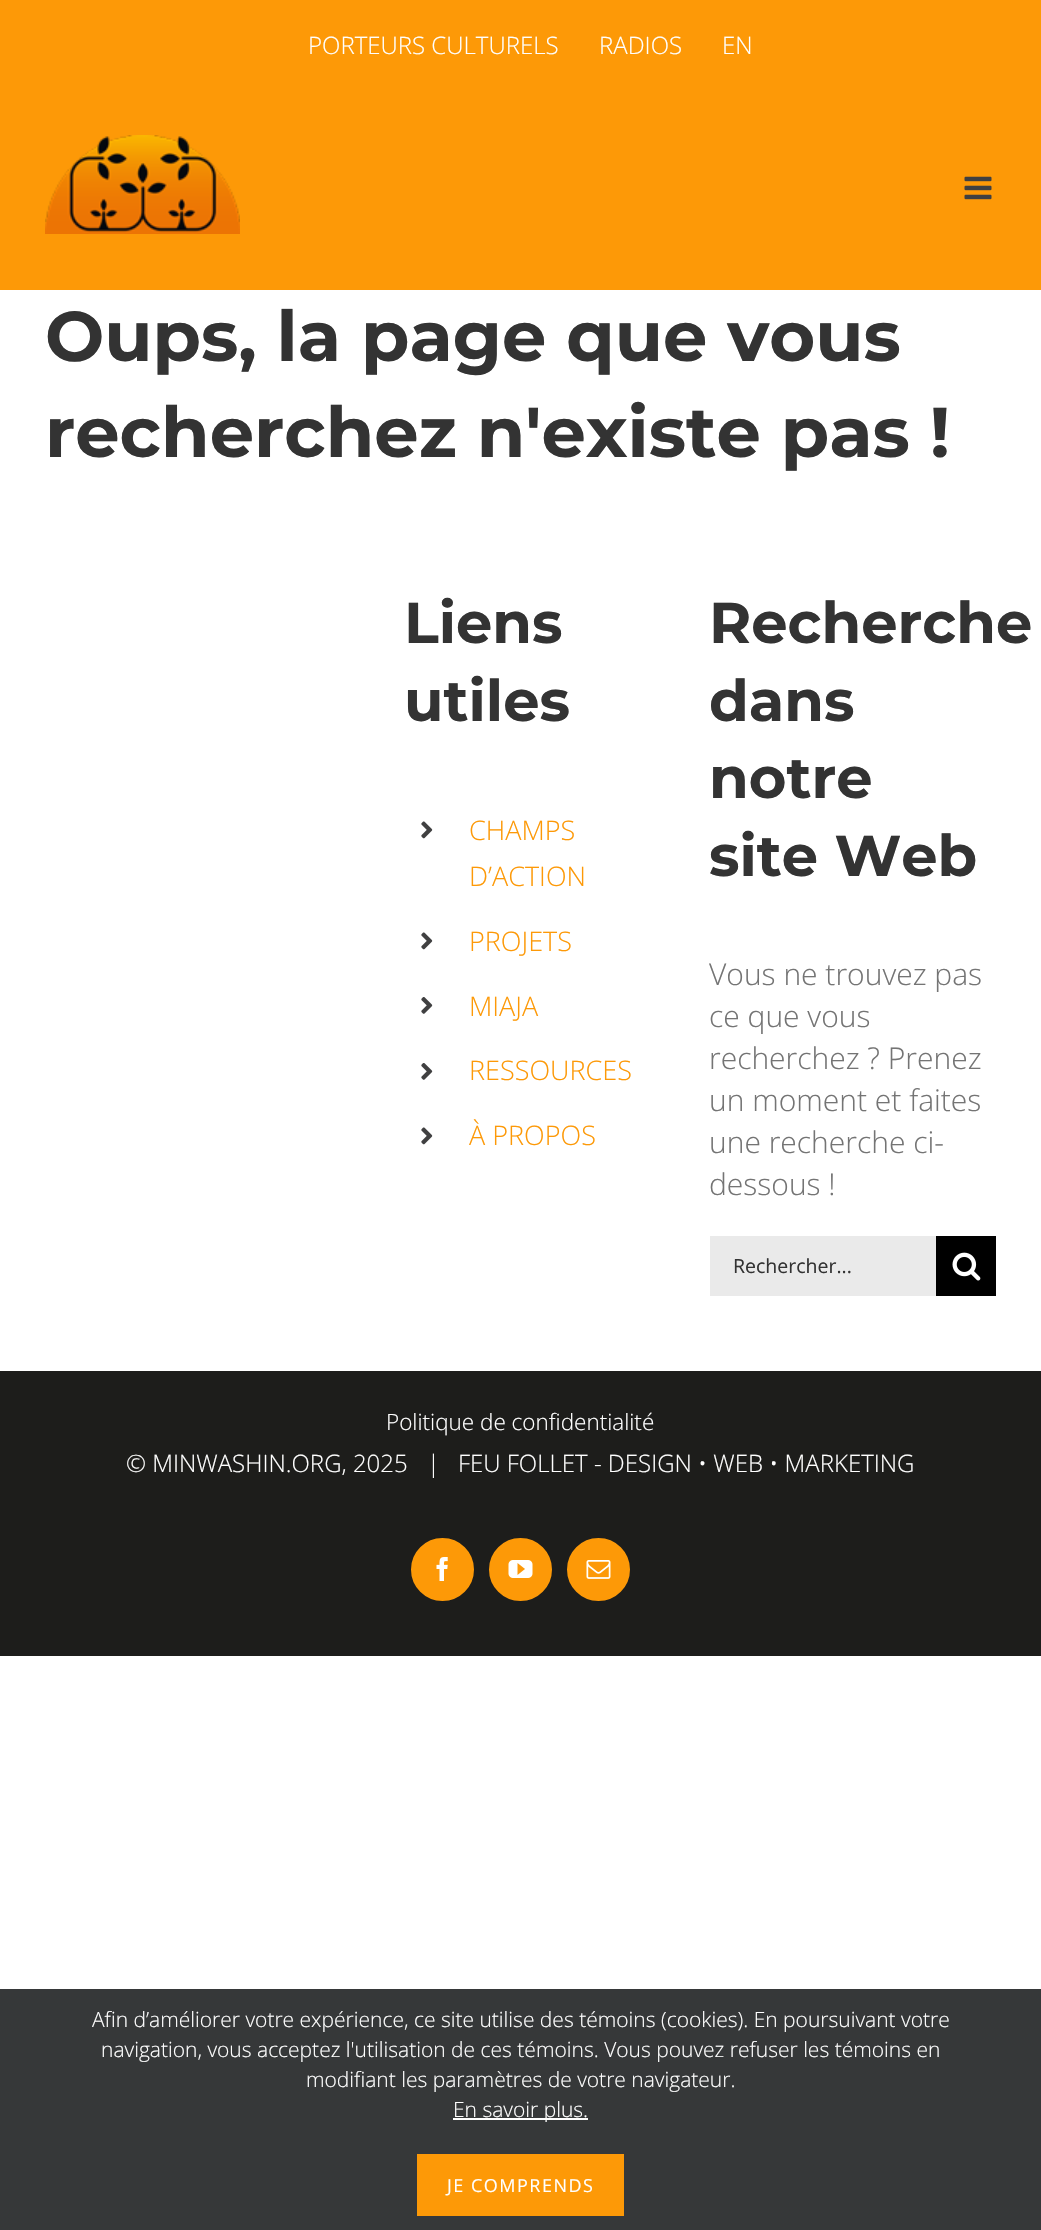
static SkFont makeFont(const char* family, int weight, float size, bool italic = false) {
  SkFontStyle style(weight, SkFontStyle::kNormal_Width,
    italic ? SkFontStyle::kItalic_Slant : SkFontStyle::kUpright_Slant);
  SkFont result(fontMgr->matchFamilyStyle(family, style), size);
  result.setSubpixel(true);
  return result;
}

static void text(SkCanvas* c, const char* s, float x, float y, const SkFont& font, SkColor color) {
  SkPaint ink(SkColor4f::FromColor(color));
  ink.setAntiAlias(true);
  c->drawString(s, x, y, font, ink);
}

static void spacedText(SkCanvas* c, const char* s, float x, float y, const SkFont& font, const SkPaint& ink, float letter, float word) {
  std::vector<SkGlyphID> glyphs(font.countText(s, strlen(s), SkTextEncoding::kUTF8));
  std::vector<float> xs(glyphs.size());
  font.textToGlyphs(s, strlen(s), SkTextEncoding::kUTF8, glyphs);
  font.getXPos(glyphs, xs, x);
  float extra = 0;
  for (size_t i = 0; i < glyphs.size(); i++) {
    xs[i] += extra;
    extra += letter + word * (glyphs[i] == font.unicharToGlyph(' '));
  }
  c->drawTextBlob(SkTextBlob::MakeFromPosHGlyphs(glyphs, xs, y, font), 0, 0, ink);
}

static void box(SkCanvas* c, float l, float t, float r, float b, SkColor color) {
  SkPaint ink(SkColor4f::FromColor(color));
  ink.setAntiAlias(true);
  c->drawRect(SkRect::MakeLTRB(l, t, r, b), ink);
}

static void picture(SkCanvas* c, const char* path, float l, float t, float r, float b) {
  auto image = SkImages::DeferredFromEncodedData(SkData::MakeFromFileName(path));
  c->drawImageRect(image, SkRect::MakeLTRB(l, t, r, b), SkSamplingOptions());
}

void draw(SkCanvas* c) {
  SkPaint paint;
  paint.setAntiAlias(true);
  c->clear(0xffffffff);
  box(c, 0, 0, 1041, 290, 0xfffd9907);
  SkFont face1 = makeFont("Open Sans", 300, 24);
  text(c, "PORTEURS CULTURELS", 308, 54, face1, 0xffffffff);
  text(c, "RADIOS", 599, 54, face1, 0xffffffff);
  text(c, "EN", 722, 54, face1, 0xffffffff);
  picture(c, "img_01.png", 45, 135, 240, 234);
  picture(c, "img_02.png", 964, 176, 992, 200);
  SkFont face2 = makeFont("Montserrat", 700, 70.25f);
  text(c, "Oups, la page que vous", 45, 361, face2, 0xff333333);
  text(c, "recherchez n'existe pas !", 45, 457, face2, 0xff333333);
  SkFont face3 = makeFont("Montserrat", 700, 57.5f);
  text(c, "Liens", 404, 643, face3, 0xff333333);
  text(c, "utiles", 404, 721, face3, 0xff333333);
  picture(c, "img_03.png", 421, 821, 433, 839);
  SkFont face4 = makeFont("Open Sans", 300, 27);
  text(c, "CHAMPS", 469, 840, face4, 0xfffd9907);
  text(c, "D’ACTION", 469, 886, face4, 0xfffd9907);
  picture(c, "img_03.png", 421, 932, 433, 950);
  text(c, "PROJETS", 469, 951, face4, 0xfffd9907);
  picture(c, "img_04.png", 421, 997, 433, 1014);
  text(c, "MIAJA", 469, 1016, face4, 0xfffd9907);
  picture(c, "img_04.png", 421, 1063, 433, 1080);
  text(c, "RESSOURCES", 469, 1080, face4, 0xfffd9907);
  picture(c, "img_03.png", 421, 1127, 433, 1145);
  text(c, "À PROPOS", 469, 1145, face4, 0xfffd9907);
  text(c, "Recherche", 709, 643, face3, 0xff333333);
  text(c, "dans", 709, 721, face3, 0xff333333);
  text(c, "notre", 709, 798, face3, 0xff333333);
  text(c, "site Web", 709, 876, face3, 0xff333333);
  SkFont face5 = makeFont("Open Sans", 300, 30);
  text(c, "Vous ne trouvez pas", 709, 985, face5, 0xff747474);
  text(c, "ce que vous", 709, 1027, face5, 0xff747474);
  text(c, "recherchez ? Prenez", 709, 1069, face5, 0xff747474);
  text(c, "un moment et faites", 709, 1111, face5, 0xff747474);
  text(c, "une recherche ci-", 709, 1153, face5, 0xff747474);
  text(c, "dessous !", 709, 1195, face5, 0xff747474);
  box(c, 710, 1236, 936, 1296, 0xffeaeaea);
  SkFont face6 = makeFont("Open Sans", 400, 19.5f);
  text(c, "Rechercher...", 733, 1273, face6, 0xff333333);
  box(c, 936, 1236, 996, 1296, 0xff000000);
  picture(c, "img_05.png", 952, 1252, 981, 1281);
  box(c, 0, 1371, 1041, 1656, 0xff1d1d1b);
  SkFont face7 = makeFont("Open Sans", 300, 22.5f);
  text(c, "Politique de confidentialité", 386, 1430, face7, 0xffffffff);
  text(c, "© MINWASHIN.ORG, 2025", 126, 1472, face1, 0xffffffff);
  text(c, "|", 427, 1472, face1, 0xffffffff);
  text(c, "FEU FOLLET - DESIGN • WEB • MARKETING", 458, 1472, face1, 0xffffffff);
  paint.setColor(0xfffd9907);
  c->drawCircle(442.5f, 1569.5f, 30.5f, paint);
  paint.setStyle(SkPaint::kStroke_Style);
  paint.setStrokeWidth(2);
  c->drawCircle(442.5f, 1569.5f, 30.5f, paint);
  picture(c, "img_06.png", 436, 1557, 448, 1581);
  paint.setStyle(SkPaint::kFill_Style);
  c->drawCircle(520.5f, 1569.5f, 30.5f, paint);
  paint.setStyle(SkPaint::kStroke_Style);
  c->drawCircle(520.5f, 1569.5f, 30.5f, paint);
  picture(c, "img_07.png", 508, 1560, 533, 1578);
  paint.setStyle(SkPaint::kFill_Style);
  c->drawCircle(598.5f, 1569.5f, 30.5f, paint);
  paint.setStyle(SkPaint::kStroke_Style);
  c->drawCircle(598.5f, 1569.5f, 30.5f, paint);
  picture(c, "img_08.png", 586, 1560, 611, 1579);
  box(c, 0, 1989, 1041, 2230, 0xff363839);
  SkFont face8 = makeFont("Open Sans", 300, 21);
  text(c, "Afin d’améliorer votre expérience, ce site utilise des témoins (cookies). En poursuivant votre", 92, 2027, face8, 0xffffffff);
  text(c, "navigation, vous acceptez l'utilisation de ces témoins. Vous pouvez refuser les témoins en", 101, 2057, face8, 0xffffffff);
  text(c, "modifiant les paramètres de votre navigateur.", 306, 2087, face8, 0xffffffff);
  box(c, 453, 2118, 588, 2120, 0xffffffff);
  text(c, "En savoir plus.", 453, 2117, face8, 0xffffffff);
  box(c, 417, 2154, 624, 2216, 0xfffd9907);
  SkFont face9 = makeFont("Open Sans", 400, 18);
  paint.setStyle(SkPaint::kFill_Style);
  paint.setColor(0xffffffff);
  spacedText(c, "JE COMPRENDS", 447, 2192, face9, paint, 1.5f, 0);
}
